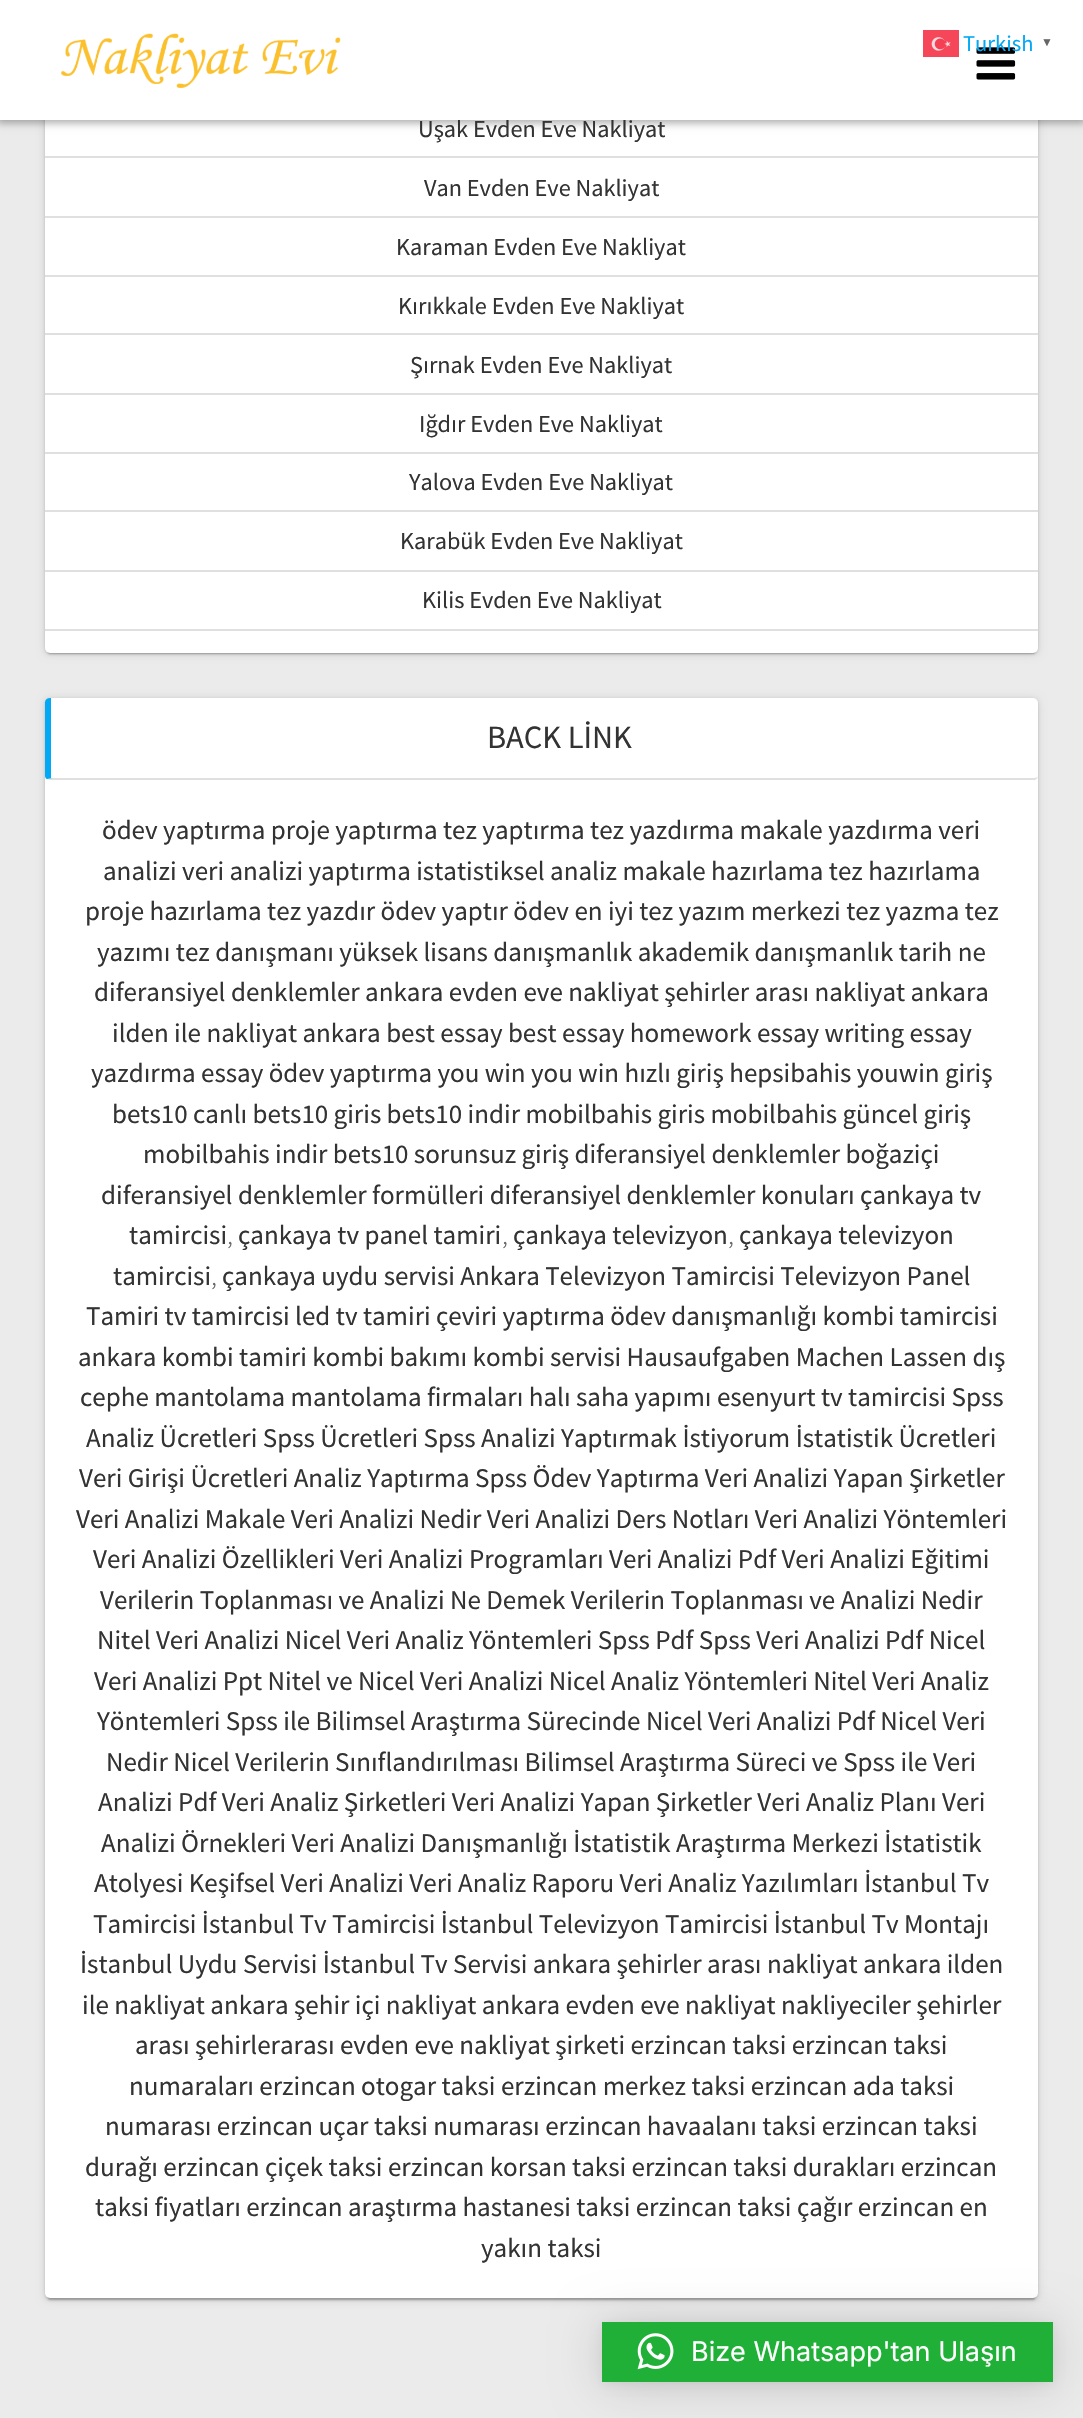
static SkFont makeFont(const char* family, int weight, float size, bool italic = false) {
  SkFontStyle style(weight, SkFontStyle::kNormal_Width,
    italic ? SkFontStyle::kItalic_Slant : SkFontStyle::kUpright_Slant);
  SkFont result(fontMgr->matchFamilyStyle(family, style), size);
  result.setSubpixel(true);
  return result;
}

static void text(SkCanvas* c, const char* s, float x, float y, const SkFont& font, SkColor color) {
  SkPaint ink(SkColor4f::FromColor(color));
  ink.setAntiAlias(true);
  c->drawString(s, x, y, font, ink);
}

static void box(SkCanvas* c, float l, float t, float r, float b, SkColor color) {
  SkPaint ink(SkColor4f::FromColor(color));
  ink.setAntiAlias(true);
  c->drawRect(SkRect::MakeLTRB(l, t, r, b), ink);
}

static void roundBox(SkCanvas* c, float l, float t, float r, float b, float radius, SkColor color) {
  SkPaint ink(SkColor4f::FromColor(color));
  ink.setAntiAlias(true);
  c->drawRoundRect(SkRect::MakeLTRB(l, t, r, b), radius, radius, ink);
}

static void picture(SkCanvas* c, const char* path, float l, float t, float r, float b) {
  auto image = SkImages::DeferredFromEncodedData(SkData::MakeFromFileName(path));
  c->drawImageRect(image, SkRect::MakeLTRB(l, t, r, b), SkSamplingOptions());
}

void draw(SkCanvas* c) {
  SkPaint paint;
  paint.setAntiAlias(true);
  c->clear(0xffebebeb);
  paint.setColor(0x1f000000);
  paint.setMaskFilter(SkMaskFilter::MakeBlur(kNormal_SkBlurStyle, 4));
  c->drawRoundRect(SkRect::MakeLTRB(45, -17, 1038, 654), 5, 5, paint);
  paint.setMaskFilter(nullptr);
  paint.setColor(0x33000000);
  paint.setMaskFilter(SkMaskFilter::MakeBlur(kNormal_SkBlurStyle, 1));
  c->drawRoundRect(SkRect::MakeLTRB(48, -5, 1035, 654), 1.5f, 1.5f, paint);
  paint.setMaskFilter(nullptr);
  paint.setColor(0x24000000);
  paint.setMaskFilter(SkMaskFilter::MakeBlur(kNormal_SkBlurStyle, 1.5f));
  c->drawRoundRect(SkRect::MakeLTRB(45, -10, 1038, 654), 5, 5, paint);
  paint.setMaskFilter(nullptr);
  roundBox(c, 45, -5, 1038, 653, 5, 0xffffffff);
  paint.setColor(0x54000000);
  paint.setMaskFilter(SkMaskFilter::MakeBlur(kNormal_SkBlurStyle, 4));
  c->drawRect(SkRect::MakeLTRB(-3, -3, 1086, 123), paint);
  paint.setMaskFilter(nullptr);
  SkFont face1 = makeFont("Source Sans Pro", 400, 24.25f);
  text(c, "Uşak Evden Eve Nakliyat", 418, 137, face1, 0xff333333);
  box(c, 0, 0, 1083, 120, 0xffffffff);
  picture(c, "img_01.png", 61, 33, 341, 88);
  picture(c, "img_02.png", 976, 47, 1016, 80);
  picture(c, "img_03.png", 923, 30, 959, 57);
  SkFont face2 = makeFont("Source Sans Pro", 400, 22.5f);
  text(c, "Turkish", 963, 51, face2, 0xff03a9f4);
  SkFont face3 = makeFont("Liberation Sans", 700, 12);
  text(c, "▼", 1041, 46, face3, 0xff666666);
  box(c, 45, 156, 1038, 158, 0xffe0e0e0);
  box(c, 45, 216, 1038, 218, 0xffe0e0e0);
  text(c, "Van Evden Eve Nakliyat", 424, 196, face1, 0xff333333);
  box(c, 45, 275, 1038, 277, 0xffe0e0e0);
  text(c, "Karaman Evden Eve Nakliyat", 396, 255, face1, 0xff333333);
  box(c, 45, 333, 1038, 335, 0xffe0e0e0);
  text(c, "Kırıkkale Evden Eve Nakliyat", 398, 314, face1, 0xff333333);
  box(c, 45, 393, 1038, 395, 0xffe0e0e0);
  text(c, "Şırnak Evden Eve Nakliyat", 410, 373, face1, 0xff333333);
  box(c, 45, 452, 1038, 454, 0xffe0e0e0);
  text(c, "Iğdır Evden Eve Nakliyat", 419, 432, face1, 0xff333333);
  box(c, 45, 510, 1038, 512, 0xffe0e0e0);
  text(c, "Yalova Evden Eve Nakliyat", 409, 490, face1, 0xff333333);
  box(c, 45, 570, 1038, 572, 0xffe0e0e0);
  text(c, "Karabük Evden Eve Nakliyat", 400, 549, face1, 0xff333333);
  box(c, 45, 629, 1038, 631, 0xffe0e0e0);
  text(c, "Kilis Evden Eve Nakliyat", 422, 608, face1, 0xff333333);
  paint.setColor(0x1f000000);
  paint.setMaskFilter(SkMaskFilter::MakeBlur(kNormal_SkBlurStyle, 4));
  c->drawRoundRect(SkRect::MakeLTRB(45, 699, 1038, 2300), 5, 5, paint);
  paint.setMaskFilter(nullptr);
  paint.setColor(0x33000000);
  paint.setMaskFilter(SkMaskFilter::MakeBlur(kNormal_SkBlurStyle, 1));
  c->drawRoundRect(SkRect::MakeLTRB(48, 705, 1035, 2300), 1.5f, 1.5f, paint);
  paint.setMaskFilter(nullptr);
  paint.setColor(0x24000000);
  paint.setMaskFilter(SkMaskFilter::MakeBlur(kNormal_SkBlurStyle, 1.5f));
  c->drawRoundRect(SkRect::MakeLTRB(45, 699, 1038, 2300), 5, 5, paint);
  paint.setMaskFilter(nullptr);
  roundBox(c, 45, 698, 1038, 2298, 5, 0xffffffff);
  paint.setColor(0xffe0e0e0);
  c->drawPath(SkPathBuilder().moveTo(50, 780).lineTo(1034, 780).cubicTo(1036, 780, 1038, 778, 1038, 776).cubicTo(1038, 777, 1036, 778, 1034, 778).lineTo(53, 778).lineTo(47, 779).close().detach(), paint);
  paint.setColor(0xff03a8f4);
  c->drawPath(SkPathBuilder().moveTo(50, 698).lineTo(51, 698).lineTo(51, 778).lineTo(53, 778).lineTo(47, 779).cubicTo(46, 779, 45, 777, 45, 776).lineTo(45, 702).cubicTo(45, 700, 47, 698, 50, 698).close().detach(), paint);
  SkFont face4 = makeFont("Source Sans Pro", 400, 32.5f);
  text(c, "BACK LİNK", 487, 748, face4, 0xff333333);
  SkFont face5 = makeFont("Source Sans Pro", 400, 27);
  text(c, "ödev yaptırma proje yaptırma tez yaptırma tez yazdırma makale yazdırma veri", 102, 839, face5, 0xff333333);
  text(c, "analizi veri analizi yaptırma istatistiksel analiz makale hazırlama tez hazırlama", 103, 880, face5, 0xff333333);
  text(c, "proje hazırlama tez yazdır ödev yaptır ödev en iyi tez yazım merkezi tez yazma tez", 85, 920, face5, 0xff333333);
  text(c, "yazımı tez danışmanı yüksek lisans danışmanlık akademik danışmanlık tarih ne", 97, 961, face5, 0xff333333);
  text(c, "diferansiyel denklemler ankara evden eve nakliyat şehirler arası nakliyat ankara", 94, 1001, face5, 0xff333333);
  text(c, "ilden ile nakliyat ankara best essay best essay homework essay writing essay", 112, 1042, face5, 0xff333333);
  text(c, "yazdırma essay ödev yaptırma you win you win hızlı giriş hepsibahis youwin giriş", 91, 1082, face5, 0xff333333);
  text(c, "bets10 canlı bets10 giris bets10 indir mobilbahis giris mobilbahis güncel giriş", 112, 1123, face5, 0xff333333);
  text(c, "mobilbahis indir bets10 sorunsuz giriş diferansiyel denklemler boğaziçi", 143, 1163, face5, 0xff333333);
  text(c, "diferansiyel denklemler formülleri diferansiyel denklemler konuları çankaya tv", 101, 1204, face5, 0xff333333);
  text(c, "tamircisi", 129, 1244, face5, 0xff333333);
  SkFont face6 = makeFont("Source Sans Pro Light", 300, 27);
  text(c, ",", 227, 1244, face6, 0xff666666);
  text(c, "çankaya tv panel tamiri", 238, 1244, face5, 0xff333333);
  text(c, ",", 502, 1244, face6, 0xff666666);
  text(c, "çankaya televizyon", 513, 1244, face5, 0xff333333);
  text(c, ",", 728, 1244, face6, 0xff666666);
  text(c, "çankaya televizyon", 739, 1244, face5, 0xff333333);
  text(c, "tamircisi", 113, 1285, face5, 0xff333333);
  text(c, ",", 211, 1285, face6, 0xff666666);
  text(c, "çankaya uydu servisi Ankara Televizyon Tamircisi Televizyon Panel", 222, 1285, face5, 0xff333333);
  text(c, "Tamiri tv tamircisi led tv tamiri çeviri yaptırma ödev danışmanlığı kombi tamircisi", 86, 1325, face5, 0xff333333);
  text(c, "ankara kombi tamiri kombi bakımı kombi servisi Hausaufgaben Machen Lassen dış", 78, 1366, face5, 0xff333333);
  text(c, "cephe mantolama mantolama firmaları halı saha yapımı esenyurt tv tamircisi Spss", 80, 1406, face5, 0xff333333);
  text(c, "Analiz Ücretleri Spss Ücretleri Spss Analizi Yaptırmak İstiyorum İstatistik Ücretleri", 86, 1447, face5, 0xff333333);
  text(c, "Veri Girişi Ücretleri Analiz Yaptırma Spss Ödev Yaptırma Veri Analizi Yapan Şirketler", 79, 1487, face5, 0xff333333);
  text(c, "Veri Analizi Makale Veri Analizi Nedir Veri Analizi Ders Notları Veri Analizi Yöntemleri", 76, 1528, face5, 0xff333333);
  text(c, "Veri Analizi Özellikleri Veri Analizi Programları Veri Analizi Pdf Veri Analizi Eğitimi", 93, 1568, face5, 0xff333333);
  text(c, "Verilerin Toplanması ve Analizi Ne Demek Verilerin Toplanması ve Analizi Nedir", 100, 1609, face5, 0xff333333);
  text(c, "Nitel Veri Analizi Nicel Veri Analiz Yöntemleri Spss Pdf Spss Veri Analizi Pdf Nicel", 97, 1649, face5, 0xff333333);
  text(c, "Veri Analizi Ppt Nitel ve Nicel Veri Analizi Nicel Analiz Yöntemleri Nitel Veri Analiz", 94, 1690, face5, 0xff333333);
  text(c, "Yöntemleri Spss ile Bilimsel Araştırma Sürecinde Nicel Veri Analizi Pdf Nicel Veri", 97, 1730, face5, 0xff333333);
  text(c, "Nedir Nicel Verilerin Sınıflandırılması Bilimsel Araştırma Süreci ve Spss ile Veri", 106, 1771, face5, 0xff333333);
  text(c, "Analizi Pdf Veri Analiz Şirketleri Veri Analizi Yapan Şirketler Veri Analiz Planı Veri", 98, 1811, face5, 0xff333333);
  text(c, "Analizi Örnekleri Veri Analizi Danışmanlığı İstatistik Araştırma Merkezi İstatistik", 101, 1852, face5, 0xff333333);
  text(c, "Atolyesi Keşifsel Veri Analizi Veri Analiz Raporu Veri Analiz Yazılımları İstanbul Tv", 94, 1892, face5, 0xff333333);
  text(c, "Tamircisi İstanbul Tv Tamircisi İstanbul Televizyon Tamircisi İstanbul Tv Montajı", 93, 1933, face5, 0xff333333);
  text(c, "İstanbul Uydu Servisi İstanbul Tv Servisi ankara şehirler arası nakliyat ankara ilden", 80, 1973, face5, 0xff333333);
  text(c, "ile nakliyat ankara şehir içi nakliyat ankara evden eve nakliyat nakliyeciler şehirler", 82, 2014, face5, 0xff333333);
  text(c, "arası şehirlerarası evden eve nakliyat şirketi erzincan taksi erzincan taksi", 135, 2054, face5, 0xff333333);
  text(c, "numaraları erzincan otogar taksi erzincan merkez taksi erzincan ada taksi", 129, 2095, face5, 0xff333333);
  text(c, "numarası erzincan uçar taksi numarası erzincan havaalanı taksi erzincan taksi", 105, 2135, face5, 0xff333333);
  text(c, "durağı erzincan çiçek taksi erzincan korsan taksi erzincan taksi durakları erzincan", 85, 2176, face5, 0xff333333);
  text(c, "taksi fiyatları erzincan araştırma hastanesi taksi erzincan taksi çağır erzincan en", 95, 2216, face5, 0xff333333);
  text(c, "yakın taksi", 481, 2257, face5, 0xff333333);
  paint.setColor(0x29000000);
  paint.setMaskFilter(SkMaskFilter::MakeBlur(kNormal_SkBlurStyle, 24));
  c->drawRect(SkRect::MakeLTRB(602, 2325, 1053, 2385), paint);
  paint.setMaskFilter(nullptr);
  paint.setColor(0x0f000000);
  paint.setMaskFilter(SkMaskFilter::MakeBlur(kNormal_SkBlurStyle, 4.5f));
  c->drawRect(SkRect::MakeLTRB(602, 2324, 1053, 2384), paint);
  paint.setMaskFilter(nullptr);
  box(c, 602, 2322, 1053, 2382, 0xff20b038);
  picture(c, "img_04.png", 637, 2333, 674, 2370);
  SkFont face7 = makeFont("Inter", 400, 27);
  text(c, "Bize Whatsapp'tan Ulaşın", 691, 2361, face7, 0xffffffff);
}
